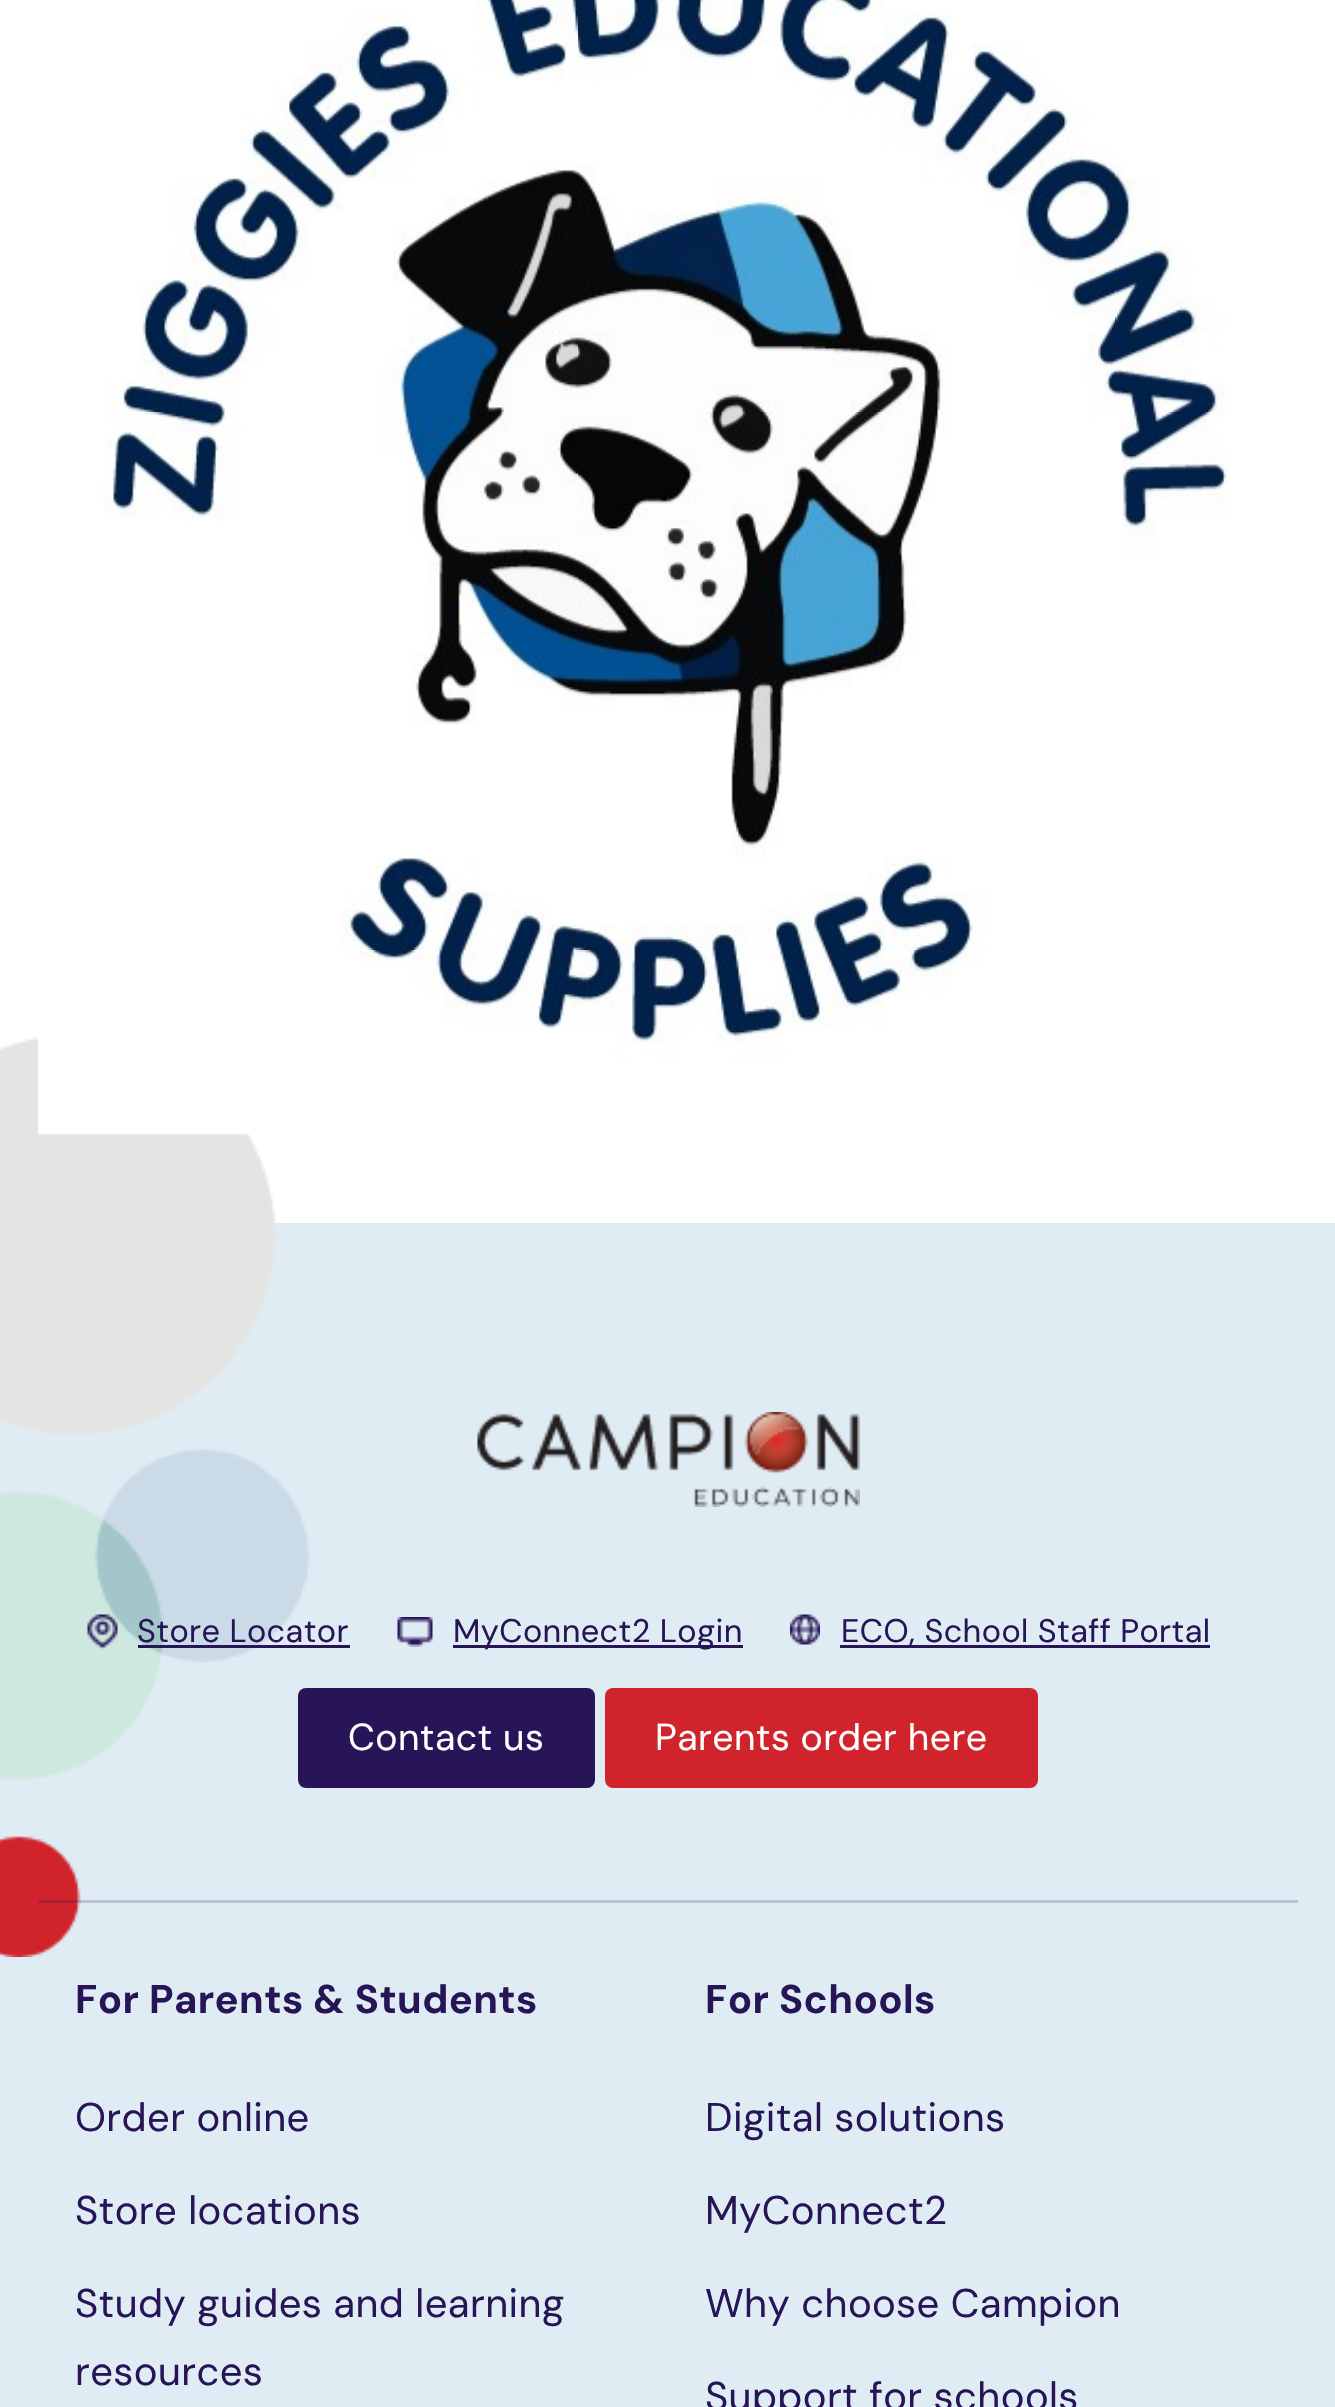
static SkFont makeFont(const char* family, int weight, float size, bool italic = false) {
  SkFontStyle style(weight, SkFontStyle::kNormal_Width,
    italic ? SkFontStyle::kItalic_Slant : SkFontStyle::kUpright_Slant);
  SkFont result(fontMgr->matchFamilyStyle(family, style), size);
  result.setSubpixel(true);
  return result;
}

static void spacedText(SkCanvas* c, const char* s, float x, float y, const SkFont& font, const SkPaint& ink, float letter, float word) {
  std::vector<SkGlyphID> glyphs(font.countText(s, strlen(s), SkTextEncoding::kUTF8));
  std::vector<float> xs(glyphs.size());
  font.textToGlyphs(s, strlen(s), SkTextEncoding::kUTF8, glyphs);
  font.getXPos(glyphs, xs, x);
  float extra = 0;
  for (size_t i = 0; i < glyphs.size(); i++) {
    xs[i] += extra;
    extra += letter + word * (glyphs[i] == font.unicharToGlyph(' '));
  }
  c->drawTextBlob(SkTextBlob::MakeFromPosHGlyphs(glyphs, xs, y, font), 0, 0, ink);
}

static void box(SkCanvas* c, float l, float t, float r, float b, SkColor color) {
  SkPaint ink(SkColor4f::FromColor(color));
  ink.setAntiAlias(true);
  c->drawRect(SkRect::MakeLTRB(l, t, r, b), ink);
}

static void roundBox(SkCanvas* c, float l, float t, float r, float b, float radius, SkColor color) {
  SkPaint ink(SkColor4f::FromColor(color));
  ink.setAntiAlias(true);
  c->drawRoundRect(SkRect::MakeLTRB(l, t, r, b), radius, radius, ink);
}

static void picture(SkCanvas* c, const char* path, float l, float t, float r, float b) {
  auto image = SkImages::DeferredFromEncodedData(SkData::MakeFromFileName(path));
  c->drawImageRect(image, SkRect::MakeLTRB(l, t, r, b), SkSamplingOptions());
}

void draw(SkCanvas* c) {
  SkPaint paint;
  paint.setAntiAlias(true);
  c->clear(0xffffffff);
  box(c, 0, 1223, 1335, 2407, 0xffe0ecf4);
  picture(c, "img_02.png", 0, 1036, 310, 1957);
  picture(c, "img_01.png", 38, 0, 1230, 1135);
  box(c, 38, 1900, 1298, 1903, 0x33271557);
  picture(c, "img_03.png", 477, 1412, 860, 1507);
  picture(c, "img_04.png", 87, 1614, 118, 1650);
  SkFont face1 = makeFont("DM Sans", 400, 32.5f);
  paint.setColor(0xff271557);
  spacedText(c, "Store Locator", 137, 1642, face1, paint, 0.4f, 0);
  box(c, 138, 1645, 350, 1648, 0xff271557);
  picture(c, "img_05.png", 397, 1617, 433, 1647);
  box(c, 453, 1645, 743, 1648, 0xff271557);
  spacedText(c, "MyConnect2 Login", 453, 1642, face1, paint, 0.4f, 0);
  picture(c, "img_06.png", 790, 1614, 820, 1645);
  box(c, 840, 1645, 1210, 1648, 0xff271557);
  spacedText(c, "ECO, School Staff Portal", 841, 1642, face1, paint, 0.4f, 0);
  roundBox(c, 298, 1688, 595, 1788, 8, 0xff271557);
  SkFont face2 = makeFont("DM Sans", 400, 37.5f);
  paint.setColor(0xffffffff);
  spacedText(c, "Contact us", 348, 1750, face2, paint, 0.4f, 0);
  roundBox(c, 605, 1688, 1038, 1788, 8, 0xffd0232b);
  spacedText(c, "Parents order here", 655, 1750, face2, paint, 0.4f, 0);
  SkFont face3 = makeFont("DM Sans", 700, 40);
  paint.setColor(0xff271557);
  spacedText(c, "For Parents & Students", 75, 2013, face3, paint, 0.4f, 0);
  SkFont face4 = makeFont("DM Sans", 400, 40);
  spacedText(c, "Order online", 75, 2131, face4, paint, 0.4f, 0);
  spacedText(c, "Store locations", 75, 2224, face4, paint, 0.4f, 0);
  spacedText(c, "Study guides and learning", 75, 2317, face4, paint, 0.4f, 0);
  spacedText(c, "resources", 75, 2385, face4, paint, 0.4f, 0);
  spacedText(c, "For Schools", 705, 2013, face3, paint, 0.4f, 0);
  spacedText(c, "Digital solutions", 705, 2131, face4, paint, 0.4f, 0);
  spacedText(c, "MyConnect2", 705, 2224, face4, paint, 0.4f, 0);
  spacedText(c, "Why choose Campion", 705, 2317, face4, paint, 0.4f, 0);
  spacedText(c, "Support for schools", 705, 2410, face4, paint, 0.4f, 0);
}
